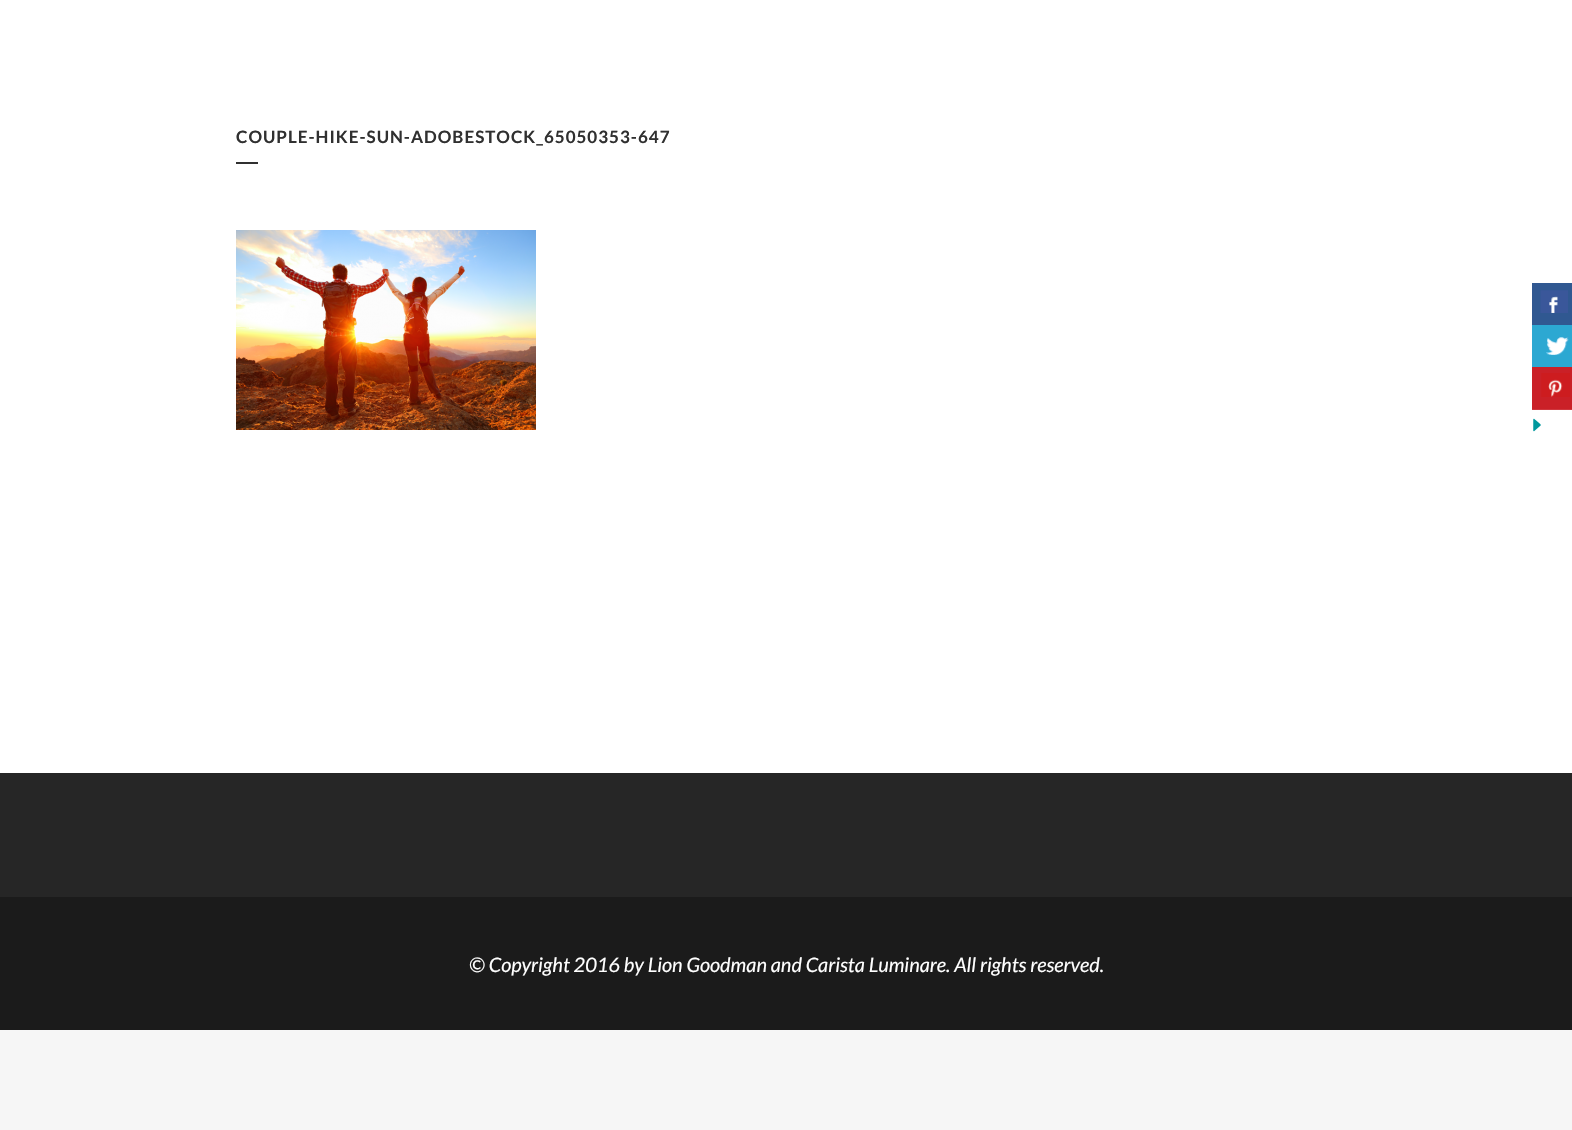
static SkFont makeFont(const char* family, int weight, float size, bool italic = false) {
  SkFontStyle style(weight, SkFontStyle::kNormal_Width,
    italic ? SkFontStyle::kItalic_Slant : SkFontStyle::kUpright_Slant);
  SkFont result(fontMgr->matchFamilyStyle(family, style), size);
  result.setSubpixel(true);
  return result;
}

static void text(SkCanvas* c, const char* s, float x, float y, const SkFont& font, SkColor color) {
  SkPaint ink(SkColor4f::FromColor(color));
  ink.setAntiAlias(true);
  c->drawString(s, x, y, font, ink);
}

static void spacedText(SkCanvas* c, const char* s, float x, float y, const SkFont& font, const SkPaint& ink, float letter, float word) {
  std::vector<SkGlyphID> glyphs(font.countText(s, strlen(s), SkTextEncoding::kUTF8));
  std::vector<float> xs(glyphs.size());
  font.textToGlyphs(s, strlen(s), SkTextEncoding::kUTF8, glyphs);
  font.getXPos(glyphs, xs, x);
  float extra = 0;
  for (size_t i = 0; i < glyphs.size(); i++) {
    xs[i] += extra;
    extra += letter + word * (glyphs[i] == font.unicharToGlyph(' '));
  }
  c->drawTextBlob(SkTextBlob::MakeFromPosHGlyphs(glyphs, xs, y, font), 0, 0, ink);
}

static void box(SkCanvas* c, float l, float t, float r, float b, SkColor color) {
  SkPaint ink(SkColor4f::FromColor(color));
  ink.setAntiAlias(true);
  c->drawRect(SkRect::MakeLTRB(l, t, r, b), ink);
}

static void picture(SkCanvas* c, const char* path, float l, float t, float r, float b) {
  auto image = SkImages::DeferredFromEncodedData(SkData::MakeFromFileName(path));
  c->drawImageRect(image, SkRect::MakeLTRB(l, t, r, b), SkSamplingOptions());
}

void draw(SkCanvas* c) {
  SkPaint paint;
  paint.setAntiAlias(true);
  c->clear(0xfff6f6f6);
  box(c, 0, 0, 1572, 773, 0xffffffff);
  SkFont face1 = makeFont("Lato", 700, 17);
  paint.setColor(0xff303030);
  spacedText(c, "COUPLE-HIKE-SUN-ADOBESTOCK_65050353-647", 236, 143, face1, paint, 1, 0);
  box(c, 236, 162, 258, 164, 0xff303030);
  picture(c, "img_01.png", 236, 230, 536, 430);
  box(c, 0, 773, 1572, 897, 0xff262626);
  box(c, 0, 897, 1572, 1030, 0xff1b1b1b);
  SkFont face2 = makeFont("Lato", 400, 20, true);
  text(c, "© Copyright 2016 by Lion Goodman and Carista Luminare. All rights reserved.", 469, 972, face2, 0xffffffff);
  box(c, 1532, 283, 1572, 325, 0xff305891);
  picture(c, "img_02.png", 1540, 290, 1568, 313);
  box(c, 1532, 325, 1572, 367, 0xff2ca8d2);
  picture(c, "img_03.png", 1546, 337, 1569, 355);
  box(c, 1532, 367, 1572, 409, 0xffca2027);
  box(c, 1532, 409, 1572, 410, 0xffcf363d);
  picture(c, "img_04.png", 1541, 373, 1570, 397);
  picture(c, "img_05.png", 1533, 418, 1541, 432);
}
